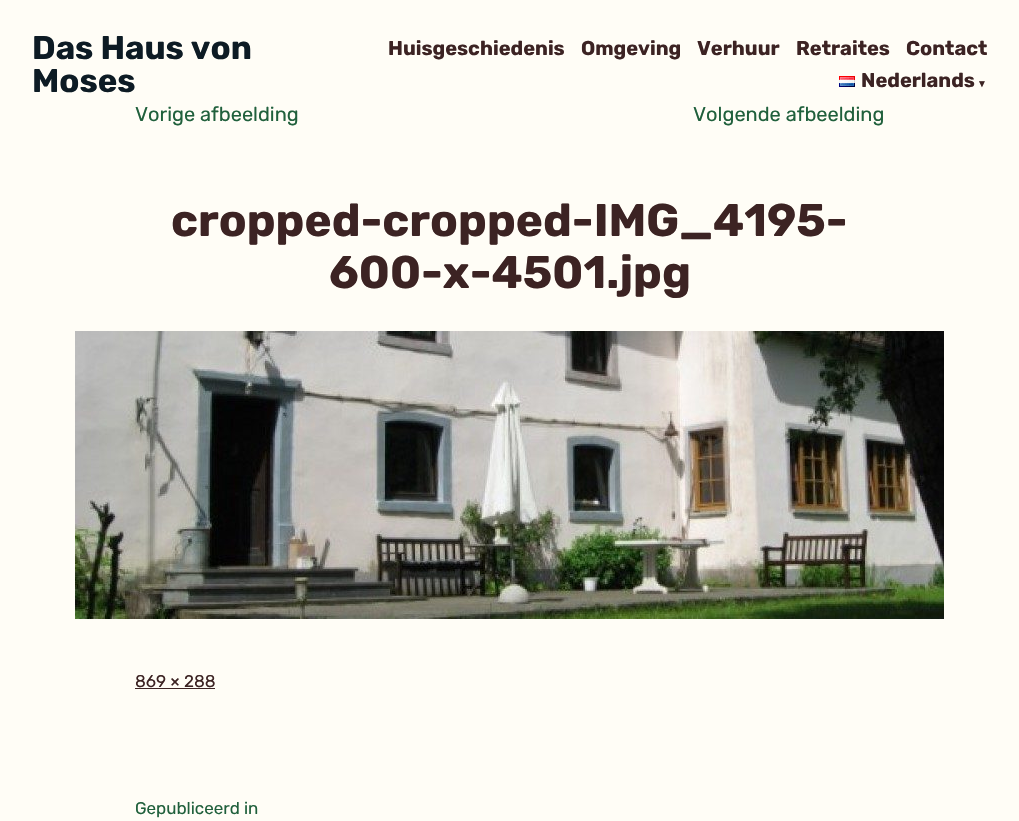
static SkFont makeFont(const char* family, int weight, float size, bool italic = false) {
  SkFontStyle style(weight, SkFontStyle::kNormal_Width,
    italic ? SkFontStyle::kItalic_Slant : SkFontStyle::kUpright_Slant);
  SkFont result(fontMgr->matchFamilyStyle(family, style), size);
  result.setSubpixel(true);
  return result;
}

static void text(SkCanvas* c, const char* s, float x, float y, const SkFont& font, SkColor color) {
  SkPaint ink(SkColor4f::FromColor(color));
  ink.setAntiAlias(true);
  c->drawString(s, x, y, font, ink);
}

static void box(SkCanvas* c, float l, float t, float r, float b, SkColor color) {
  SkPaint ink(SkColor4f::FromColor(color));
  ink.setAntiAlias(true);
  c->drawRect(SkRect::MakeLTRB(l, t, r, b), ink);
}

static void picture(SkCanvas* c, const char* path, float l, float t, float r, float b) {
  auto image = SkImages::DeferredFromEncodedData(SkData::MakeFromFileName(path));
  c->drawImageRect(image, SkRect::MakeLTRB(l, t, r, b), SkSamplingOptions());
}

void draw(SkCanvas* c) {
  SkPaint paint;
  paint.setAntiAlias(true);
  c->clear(0xfffffdf6);
  SkFont face1 = makeFont("Rubik", 700, 33);
  text(c, "Das Haus von", 32, 59, face1, 0xff0d1b24);
  text(c, "Moses", 32, 92, face1, 0xff0d1b24);
  SkFont face2 = makeFont("Rubik", 700, 20);
  text(c, "Huisgeschiedenis", 388, 55, face2, 0xff3c2323);
  text(c, "Omgeving", 581, 55, face2, 0xff3c2323);
  text(c, "Verhuur", 697, 55, face2, 0xff3c2323);
  text(c, "Retraites", 796, 55, face2, 0xff3c2323);
  text(c, "Contact", 906, 55, face2, 0xff3c2323);
  picture(c, "img_01.png", 839, 76, 855, 87);
  text(c, "Nederlands", 861, 87, face2, 0xff3c2323);
  SkFont face3 = makeFont("Liberation Sans", 700, 10);
  text(c, "▼", 977, 87, face3, 0xff3c2323);
  SkFont face4 = makeFont("Rubik", 400, 20);
  text(c, "Vorige afbeelding", 135, 121, face4, 0xff20603c);
  text(c, "Volgende afbeelding", 693, 121, face4, 0xff20603c);
  SkFont face5 = makeFont("Rubik", 700, 45.75f);
  text(c, "cropped-cropped-IMG_4195-", 171, 236, face5, 0xff3c2323);
  text(c, "600-x-4501.jpg", 329, 288, face5, 0xff3c2323);
  picture(c, "img_02.png", 75, 331, 944, 619);
  SkFont face6 = makeFont("Rubik", 400, 17);
  text(c, "869 × 288", 135, 687, face6, 0xff3c2323);
  box(c, 135, 688, 215, 689, 0xff3c2323);
  text(c, "Gepubliceerd in", 135, 814, face6, 0xff20603c);
}
